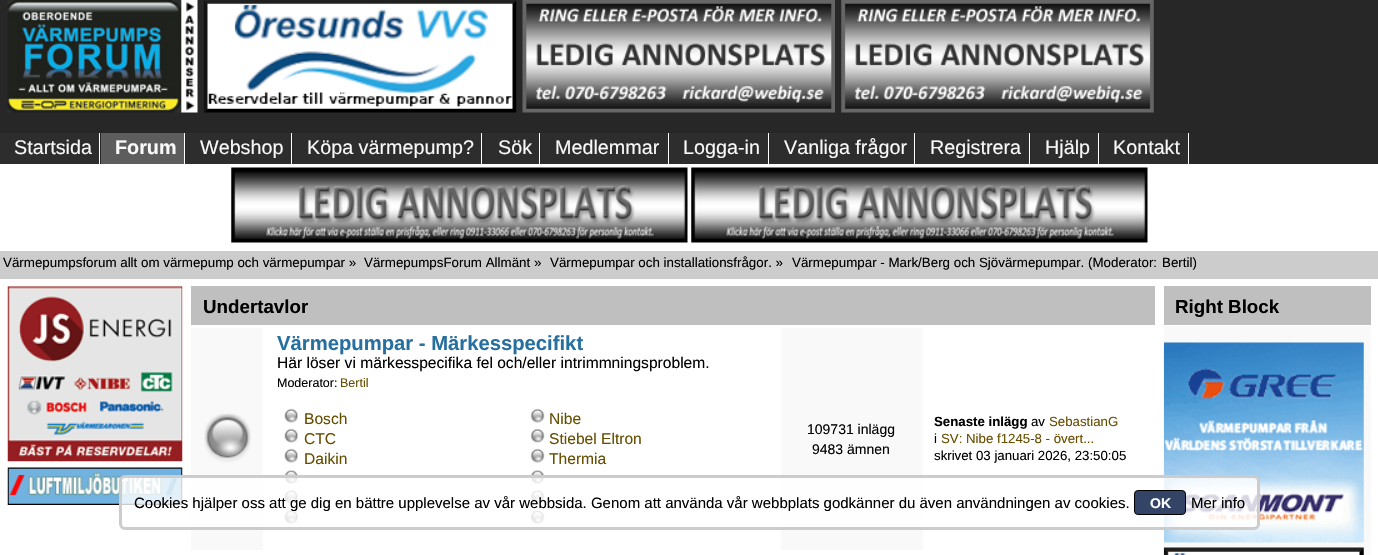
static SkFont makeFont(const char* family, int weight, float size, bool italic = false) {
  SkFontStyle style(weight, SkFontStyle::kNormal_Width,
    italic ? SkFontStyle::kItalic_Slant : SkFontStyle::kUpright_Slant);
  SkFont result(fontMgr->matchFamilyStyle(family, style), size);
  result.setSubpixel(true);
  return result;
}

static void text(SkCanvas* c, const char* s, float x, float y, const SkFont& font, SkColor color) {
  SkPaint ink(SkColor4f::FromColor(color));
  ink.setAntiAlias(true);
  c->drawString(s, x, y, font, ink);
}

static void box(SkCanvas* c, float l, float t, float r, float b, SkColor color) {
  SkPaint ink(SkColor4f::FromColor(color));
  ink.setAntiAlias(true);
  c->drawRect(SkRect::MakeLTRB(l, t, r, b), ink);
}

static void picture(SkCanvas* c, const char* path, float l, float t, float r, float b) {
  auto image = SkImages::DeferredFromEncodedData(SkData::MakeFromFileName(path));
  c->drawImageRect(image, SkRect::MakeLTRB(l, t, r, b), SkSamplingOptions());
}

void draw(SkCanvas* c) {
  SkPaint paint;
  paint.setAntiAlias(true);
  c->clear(0xffffffff);
  box(c, 0, 0, 1378, 164, 0xff272727);
  picture(c, "img_01.png", 7, 0, 198, 113);
  picture(c, "img_02.png", 203, 0, 517, 113);
  picture(c, "img_03.png", 522, 0, 835, 113);
  picture(c, "img_04.png", 841, 0, 1154, 113);
  box(c, 0, 133, 99, 164, 0xff2d2d2d);
  box(c, 99, 133, 100, 164, 0xffffffff);
  SkFont face1 = makeFont("Liberation Sans", 400, 19.75f);
  text(c, "Startsida", 14, 154, face1, 0xfff9f9f9);
  box(c, 101, 133, 184, 164, 0xff5d5d5d);
  box(c, 184, 133, 185, 164, 0xffffffff);
  SkFont face2 = makeFont("Liberation Sans", 700, 19.75f);
  text(c, "Forum", 115, 154, face2, 0xfff9f9f9);
  box(c, 186, 133, 293, 164, 0xff2d2d2d);
  box(c, 291, 133, 292, 164, 0xffffffff);
  text(c, "Webshop", 200, 154, face1, 0xfff9f9f9);
  box(c, 294, 133, 483, 164, 0xff2d2d2d);
  box(c, 481, 133, 482, 164, 0xffffffff);
  text(c, "Köpa värmepump?", 307, 154, face1, 0xfff9f9f9);
  box(c, 484, 133, 539, 164, 0xff2d2d2d);
  box(c, 539, 133, 540, 164, 0xffffffff);
  text(c, "Sök", 498, 154, face1, 0xfff9f9f9);
  box(c, 541, 133, 668, 164, 0xff2d2d2d);
  box(c, 668, 133, 669, 164, 0xffffffff);
  text(c, "Medlemmar", 555, 154, face1, 0xfff9f9f9);
  box(c, 670, 133, 768, 164, 0xff2d2d2d);
  box(c, 768, 133, 769, 164, 0xffffffff);
  text(c, "Logga-in", 683, 154, face1, 0xfff9f9f9);
  box(c, 770, 133, 914, 164, 0xff2d2d2d);
  box(c, 914, 133, 915, 164, 0xffffffff);
  text(c, "Vanliga frågor", 784, 154, face1, 0xfff9f9f9);
  box(c, 916, 133, 1029, 164, 0xff2d2d2d);
  box(c, 1029, 133, 1030, 164, 0xffffffff);
  text(c, "Registrera", 930, 154, face1, 0xfff9f9f9);
  box(c, 1031, 133, 1098, 164, 0xff2d2d2d);
  box(c, 1098, 133, 1099, 164, 0xffffffff);
  text(c, "Hjälp", 1045, 154, face1, 0xfff9f9f9);
  box(c, 1100, 133, 1188, 164, 0xff2d2d2d);
  box(c, 1188, 133, 1189, 164, 0xffffffff);
  text(c, "Kontakt", 1113, 154, face1, 0xfff9f9f9);
  picture(c, "img_05.png", 231, 167, 688, 243);
  picture(c, "img_06.png", 691, 167, 1148, 243);
  box(c, 0, 251, 1378, 279, 0xffcccccc);
  SkFont face3 = makeFont("Liberation Sans", 400, 13.35f);
  text(c, "Värmepumpsforum allt om värmepump och värmepumpar »", 3, 267, face3, 0xff000000);
  text(c, "VärmepumpsForum Allmänt »", 364, 267, face3, 0xff000000);
  text(c, "Värmepumpar och installationsfrågor. »", 550, 267, face3, 0xff000000);
  text(c, "Värmepumpar - Mark/Berg och Sjövärmepumpar. (Moderator:", 792, 267, face3, 0xff000000);
  text(c, "Bertil)", 1162, 267, face3, 0xff000000);
  picture(c, "img_07.png", 7, 286, 183, 462);
  picture(c, "img_08.png", 7, 467, 183, 505);
  box(c, 191, 286, 1155, 325, 0xffbfbfbf);
  SkFont face4 = makeFont("Liberation Sans", 700, 18.75f);
  text(c, "Undertavlor", 203, 313, face4, 0xff000000);
  box(c, 191, 328, 263, 550, 0xfff9f9f9);
  picture(c, "img_09.png", 204, 413, 251, 463);
  SkFont face5 = makeFont("Liberation Sans", 700, 20.25f);
  text(c, "Värmepumpar - Märkesspecifikt", 277, 350, face5, 0xff266f9f);
  SkFont face6 = makeFont("Liberation Sans", 400, 15.6f);
  text(c, "Här löser vi märkesspecifika fel och/eller intrimmningsproblem.", 277, 368, face6, 0xff000000);
  SkFont face7 = makeFont("Liberation Sans", 400, 12.5f);
  text(c, "Moderator:", 277, 387, face7, 0xff000000);
  text(c, "Bertil", 340, 387, face7, 0xff664d00);
  picture(c, "img_10.png", 284, 408, 298, 423);
  text(c, "Bosch", 304, 424, face6, 0xff664d00);
  picture(c, "img_10.png", 284, 428, 298, 443);
  text(c, "CTC", 304, 444, face6, 0xff664d00);
  picture(c, "img_10.png", 284, 448, 298, 463);
  text(c, "Daikin", 304, 464, face6, 0xff664d00);
  picture(c, "img_11.png", 284, 470, 298, 485);
  picture(c, "img_11.png", 284, 490, 298, 505);
  picture(c, "img_11.png", 284, 510, 298, 525);
  picture(c, "img_12.png", 530, 408, 545, 423);
  text(c, "Nibe", 549, 424, face6, 0xff664d00);
  picture(c, "img_12.png", 530, 428, 545, 443);
  text(c, "Stiebel Eltron", 549, 444, face6, 0xff664d00);
  picture(c, "img_12.png", 530, 448, 545, 463);
  text(c, "Thermia", 549, 464, face6, 0xff664d00);
  picture(c, "img_13.png", 530, 470, 545, 485);
  picture(c, "img_13.png", 530, 490, 545, 505);
  picture(c, "img_13.png", 530, 510, 545, 525);
  box(c, 781, 328, 923, 550, 0xfff9f9f9);
  SkFont face8 = makeFont("Liberation Sans", 400, 14);
  text(c, "109731 inlägg", 807, 434, face8, 0xff000000);
  text(c, "9483 ämnen", 812, 454, face8, 0xff000000);
  SkFont face9 = makeFont("Liberation Sans", 700, 13.25f);
  text(c, "Senaste inlägg", 934, 426, face9, 0xff000000);
  SkFont face10 = makeFont("Liberation Sans", 400, 13.25f);
  text(c, "av", 1031, 426, face10, 0xff000000);
  text(c, "SebastianG", 1049, 426, face10, 0xff664d00);
  text(c, "i", 934, 443, face10, 0xff000000);
  text(c, "SV: Nibe f1245-8 - övert...", 941, 443, face10, 0xff664d00);
  text(c, "skrivet 03 januari 2026, 23:50:05", 934, 460, face10, 0xff000000);
  box(c, 1164, 286, 1371, 325, 0xffbfbfbf);
  text(c, "Right Block", 1175, 313, face4, 0xff000000);
  box(c, 1164, 326, 1371, 555, 0xfff9f9f9);
  picture(c, "img_14.png", 1163, 342, 1364, 543);
  picture(c, "img_15.png", 1163, 547, 1364, 555);
  paint.setColor(0xccffffff);
  c->drawRoundRect(SkRect::MakeLTRB(120.5f, 476.5f, 1258.5f, 528.5f), 4.5f, 4.5f, paint);
  paint.setStyle(SkPaint::kStroke_Style);
  paint.setStrokeWidth(3);
  paint.setColor(0xffcccccc);
  c->drawRoundRect(SkRect::MakeLTRB(120.5f, 476.5f, 1258.5f, 528.5f), 4.5f, 4.5f, paint);
  SkFont face11 = makeFont("Liberation Sans", 400, 15);
  text(c, "Cookies hjälper oss att ge dig en bättre upplevelse av vår webbsida. Genom att använda vår webbplats godkänner du även användningen av cookies.", 134, 508, face11, 0xff000000);
  paint.setStyle(SkPaint::kFill_Style);
  paint.setColor(0xff334466);
  c->drawRoundRect(SkRect::MakeLTRB(1134.5f, 490.5f, 1185.5f, 514.5f), 3.5f, 3.5f, paint);
  paint.setStyle(SkPaint::kStroke_Style);
  paint.setStrokeWidth(1);
  paint.setColor(0xff000000);
  c->drawRoundRect(SkRect::MakeLTRB(1134.5f, 490.5f, 1185.5f, 514.5f), 3.5f, 3.5f, paint);
  SkFont face12 = makeFont("Liberation Sans", 700, 14);
  text(c, "OK", 1150, 508, face12, 0xffffffff);
  text(c, "Mer info", 1191, 508, face11, 0xff000000);
}
